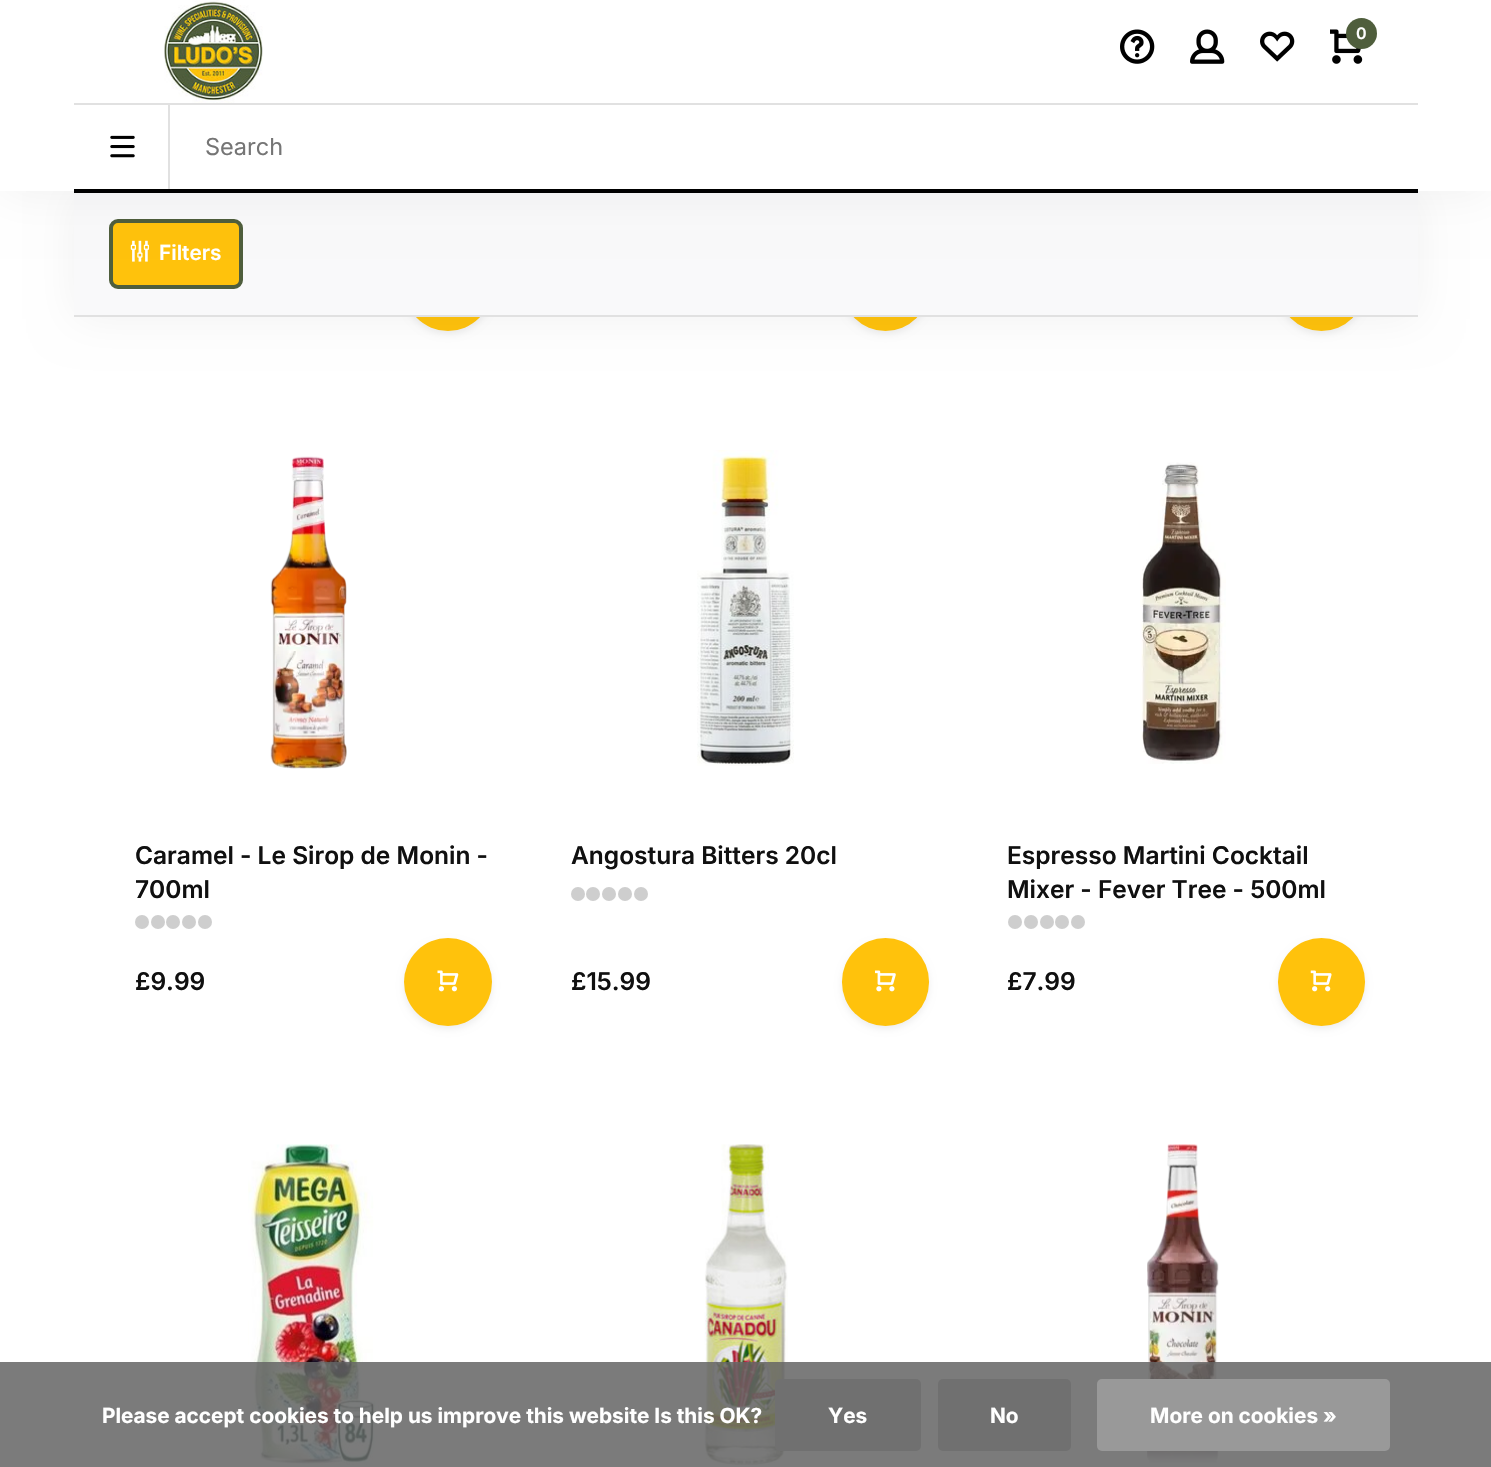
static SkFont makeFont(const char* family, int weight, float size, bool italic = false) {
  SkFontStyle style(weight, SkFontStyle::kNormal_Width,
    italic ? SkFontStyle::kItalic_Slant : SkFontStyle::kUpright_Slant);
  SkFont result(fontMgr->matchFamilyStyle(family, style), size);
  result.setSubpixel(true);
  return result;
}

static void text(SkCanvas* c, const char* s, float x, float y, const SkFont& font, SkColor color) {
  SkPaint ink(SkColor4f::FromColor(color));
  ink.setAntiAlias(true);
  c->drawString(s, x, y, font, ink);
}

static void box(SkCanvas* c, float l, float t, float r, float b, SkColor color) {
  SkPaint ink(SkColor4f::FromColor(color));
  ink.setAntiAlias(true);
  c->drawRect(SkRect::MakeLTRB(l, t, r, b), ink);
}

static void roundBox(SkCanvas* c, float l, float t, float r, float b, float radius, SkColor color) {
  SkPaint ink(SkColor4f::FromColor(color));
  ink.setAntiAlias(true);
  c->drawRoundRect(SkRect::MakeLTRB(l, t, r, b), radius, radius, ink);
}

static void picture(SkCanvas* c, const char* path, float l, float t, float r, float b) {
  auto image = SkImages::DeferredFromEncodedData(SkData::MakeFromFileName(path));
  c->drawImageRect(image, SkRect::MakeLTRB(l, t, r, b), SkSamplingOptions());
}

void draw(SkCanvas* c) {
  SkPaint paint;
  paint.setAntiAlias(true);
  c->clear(0xffffffff);
  paint.setColor(0x12000000);
  paint.setMaskFilter(SkMaskFilter::MakeBlur(kNormal_SkBlurStyle, 3.5f));
  c->drawRoundRect(SkRect::MakeLTRB(404, 247, 492, 334), 43.5f, 43.5f, paint);
  paint.setMaskFilter(nullptr);
  paint.setColor(0xffffc20c);
  c->drawCircle(448, 287, 44, paint);
  paint.setColor(0x12000000);
  paint.setMaskFilter(SkMaskFilter::MakeBlur(kNormal_SkBlurStyle, 3.5f));
  c->drawRoundRect(SkRect::MakeLTRB(842, 247, 929, 334), 43.5f, 43.5f, paint);
  paint.setMaskFilter(nullptr);
  roundBox(c, 842, 243, 929, 331, 43.5f, 0xffffc20c);
  paint.setMaskFilter(SkMaskFilter::MakeBlur(kNormal_SkBlurStyle, 3.5f));
  c->drawRoundRect(SkRect::MakeLTRB(1278, 247, 1365, 334), 43.5f, 43.5f, paint);
  paint.setMaskFilter(nullptr);
  roundBox(c, 1278, 243, 1365, 331, 43.5f, 0xffffc20c);
  paint.setColor(0x0d000000);
  paint.setMaskFilter(SkMaskFilter::MakeBlur(kNormal_SkBlurStyle, 22));
  c->drawRect(SkRect::MakeLTRB(74, 193, 1418, 319), paint);
  paint.setMaskFilter(nullptr);
  box(c, 74, 193, 1418, 315, 0xfff9f9fa);
  paint.setColor(0xffffc20c);
  c->drawRoundRect(SkRect::MakeLTRB(111, 221, 241, 287), 7, 7, paint);
  paint.setStyle(SkPaint::kStroke_Style);
  paint.setStrokeWidth(4);
  paint.setColor(0xff4f5e3c);
  c->drawRoundRect(SkRect::MakeLTRB(111, 221, 241, 287), 7, 7, paint);
  picture(c, "img_07.png", 130, 240, 150, 262);
  paint.setStyle(SkPaint::kFill_Style);
  paint.setColor(0x0d000000);
  paint.setMaskFilter(SkMaskFilter::MakeBlur(kNormal_SkBlurStyle, 22));
  c->drawRect(SkRect::MakeLTRB(0, 0, 1491, 193), paint);
  paint.setMaskFilter(nullptr);
  box(c, 0, 0, 1491, 191, 0xffffffff);
  picture(c, "img_01.png", 164, 0, 263, 103);
  picture(c, "img_02.png", 1120, 29, 1155, 64);
  picture(c, "img_03.png", 1190, 29, 1225, 64);
  picture(c, "img_04.png", 1260, 31, 1295, 62);
  picture(c, "img_05.png", 1330, 29, 1363, 64);
  paint.setColor(0xff4f5e3c);
  c->drawCircle(1361.5f, 33.5f, 15.5f, paint);
  SkFont face1 = makeFont("Inter", 600, 16);
  text(c, "0", 1356, 39, face1, 0xffffffff);
  box(c, 74, 103, 1418, 105, 0xffe1e1e1);
  picture(c, "img_06.png", 110, 135, 135, 158);
  box(c, 168, 105, 170, 189, 0xffe1e1e1);
  box(c, 74, 189, 1418, 193, 0xff000000);
  SkFont face2 = makeFont("Inter", 400, 23.5f);
  text(c, "Search", 205, 155, face2, 0xff757575);
  box(c, 74, 315, 1418, 317, 0xffe1e1e1);
  SkFont face3 = makeFont("Inter", 600, 20.8f);
  text(c, "Filters", 159, 260, face3, 0xffffffff);
  picture(c, "img_08.png", 270, 456, 347, 769);
  SkFont face4 = makeFont("Inter", 600, 24.5f);
  text(c, "Caramel - Le Sirop de Monin -", 135, 864, face4, 0xff101010);
  text(c, "700ml", 135, 898, face4, 0xff101010);
  paint.setColor(0xffcecece);
  c->drawCircle(142, 922, 7, paint);
  c->drawCircle(158, 922, 7, paint);
  c->drawCircle(173, 922, 7, paint);
  c->drawCircle(189, 922, 7, paint);
  c->drawCircle(205, 922, 7, paint);
  text(c, "£9.99", 135, 990, face4, 0xff101010);
  paint.setColor(0x12000000);
  paint.setMaskFilter(SkMaskFilter::MakeBlur(kNormal_SkBlurStyle, 3.5f));
  c->drawRoundRect(SkRect::MakeLTRB(404, 942, 492, 1029), 43.5f, 43.5f, paint);
  paint.setMaskFilter(nullptr);
  paint.setColor(0xffffc20c);
  c->drawCircle(448, 982, 44, paint);
  picture(c, "img_09.png", 437, 970, 459, 992);
  picture(c, "img_10.png", 697, 450, 794, 766);
  text(c, "Angostura Bitters 20cl", 571, 864, face4, 0xff101010);
  paint.setColor(0xffcecece);
  c->drawCircle(578, 894, 7, paint);
  c->drawCircle(593, 894, 7, paint);
  c->drawCircle(609, 894, 7, paint);
  c->drawCircle(625, 894, 7, paint);
  c->drawCircle(641, 894, 7, paint);
  text(c, "£15.99", 571, 990, face4, 0xff101010);
  paint.setColor(0x12000000);
  paint.setMaskFilter(SkMaskFilter::MakeBlur(kNormal_SkBlurStyle, 3.5f));
  c->drawRoundRect(SkRect::MakeLTRB(842, 942, 929, 1029), 43.5f, 43.5f, paint);
  paint.setMaskFilter(nullptr);
  roundBox(c, 842, 938, 929, 1026, 43.5f, 0xffffc20c);
  picture(c, "img_11.png", 875, 970, 896, 992);
  picture(c, "img_12.png", 1140, 462, 1226, 764);
  text(c, "Espresso Martini Cocktail", 1007, 864, face4, 0xff101010);
  text(c, "Mixer - Fever Tree - 500ml", 1007, 898, face4, 0xff101010);
  paint.setColor(0xffcecece);
  c->drawCircle(1015, 922, 7, paint);
  c->drawCircle(1031, 922, 7, paint);
  c->drawCircle(1047, 922, 7, paint);
  c->drawCircle(1062, 922, 7, paint);
  c->drawCircle(1078, 922, 7, paint);
  text(c, "£7.99", 1007, 990, face4, 0xff101010);
  paint.setColor(0x12000000);
  paint.setMaskFilter(SkMaskFilter::MakeBlur(kNormal_SkBlurStyle, 3.5f));
  c->drawRoundRect(SkRect::MakeLTRB(1278, 942, 1365, 1029), 43.5f, 43.5f, paint);
  paint.setMaskFilter(nullptr);
  roundBox(c, 1278, 938, 1365, 1026, 43.5f, 0xffffc20c);
  picture(c, "img_13.png", 1310, 970, 1332, 992);
  picture(c, "img_14.png", 248, 1144, 380, 1465);
  picture(c, "img_15.png", 704, 1144, 788, 1465);
  picture(c, "img_16.png", 1147, 1144, 1219, 1464);
  box(c, 0, 1362, 1491, 1467, 0xd9646464);
  SkFont face5 = makeFont("Inter", 700, 20.8f);
  text(c, "Please accept cookies to help us improve this website Is this OK?", 102, 1423, face5, 0xffffffff);
  roundBox(c, 775, 1379, 921, 1451, 5, 0xff707070);
  text(c, "Yes", 828, 1423, face5, 0xffffffff);
  roundBox(c, 938, 1379, 1071, 1451, 5, 0xff707070);
  text(c, "No", 990, 1423, face5, 0xffffffff);
  roundBox(c, 1097, 1379, 1390, 1451, 5, 0xff999999);
  text(c, "More on cookies »", 1150, 1423, face5, 0xffffffff);
}
